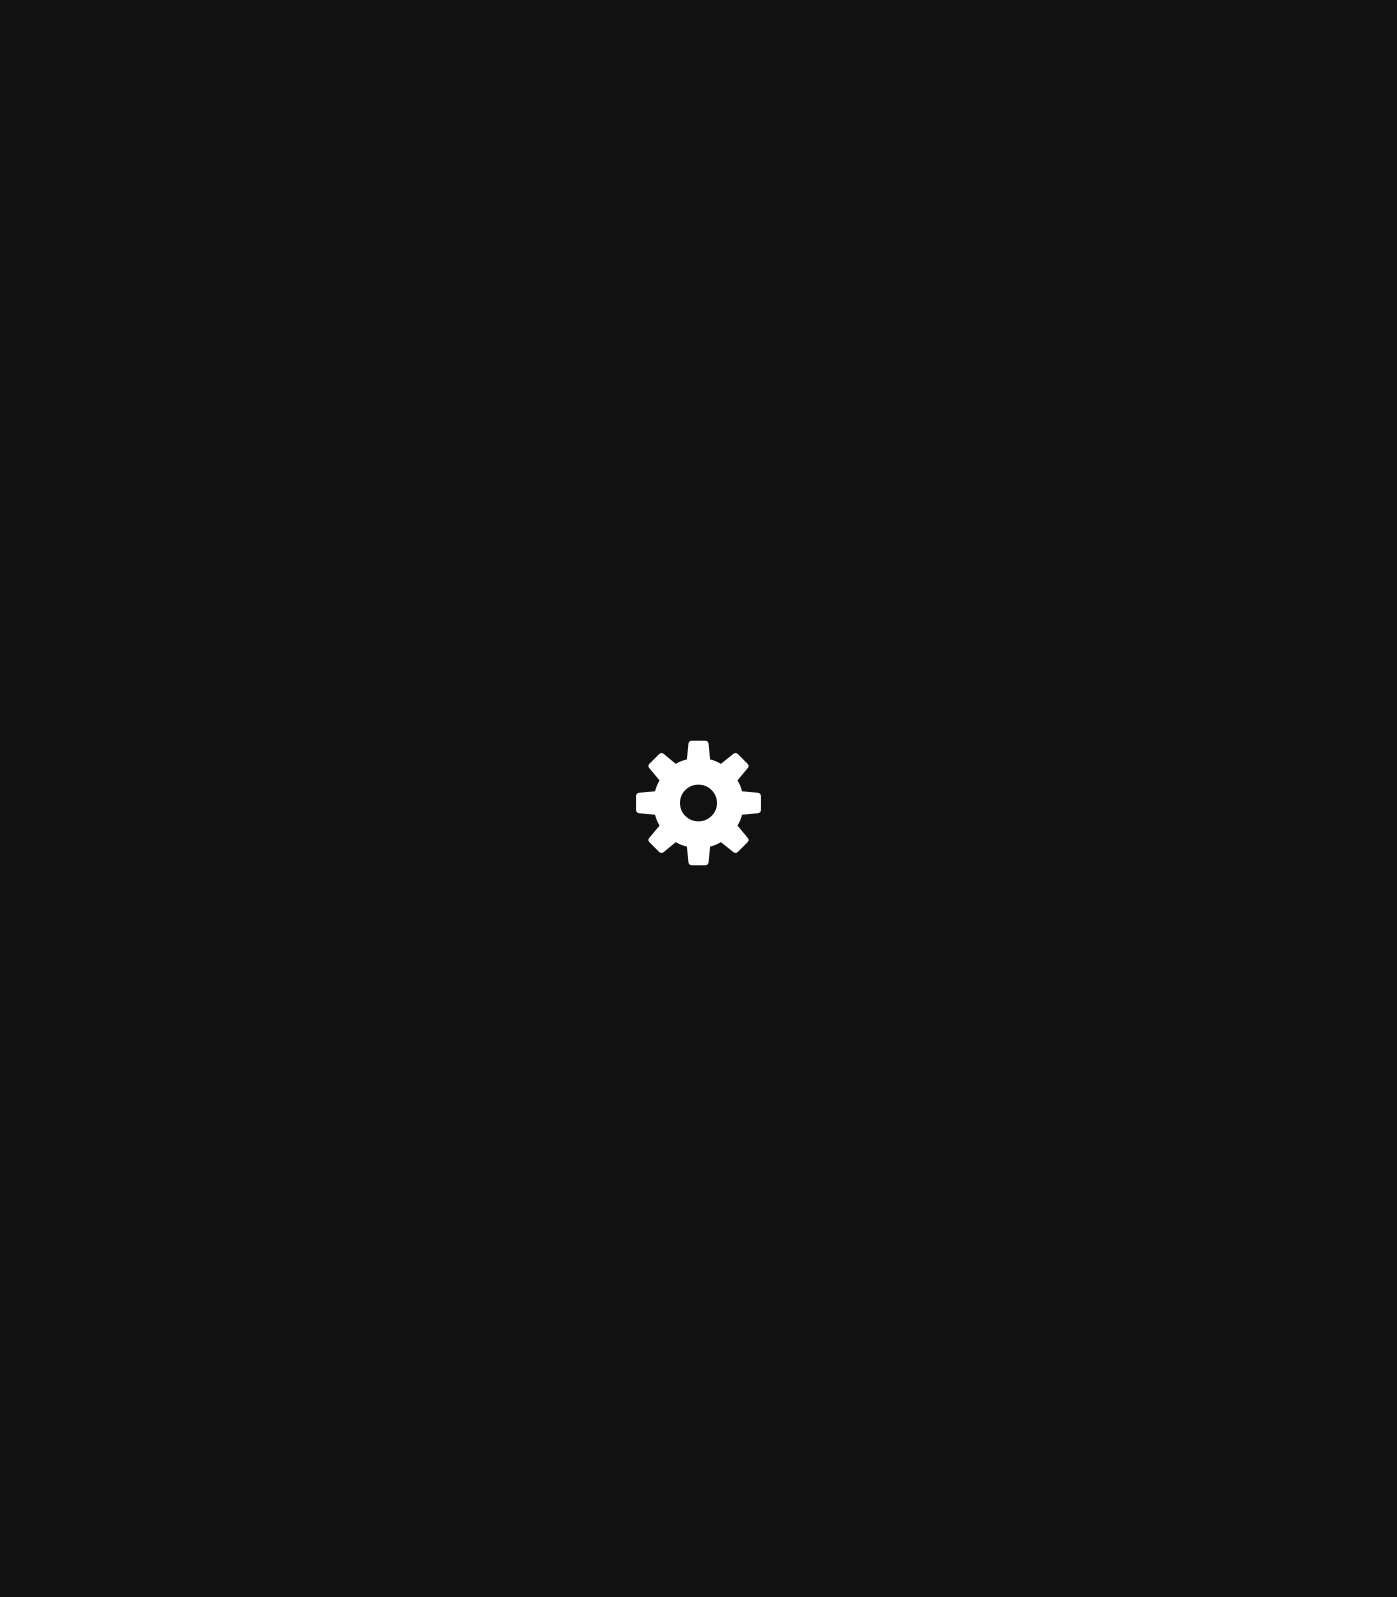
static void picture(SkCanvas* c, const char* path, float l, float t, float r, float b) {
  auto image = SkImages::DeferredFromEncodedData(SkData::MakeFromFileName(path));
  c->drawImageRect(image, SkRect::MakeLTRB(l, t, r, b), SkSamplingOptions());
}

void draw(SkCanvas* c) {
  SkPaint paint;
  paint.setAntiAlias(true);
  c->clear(0xff111111);
  picture(c, "img_01.png", 636, 740, 761, 866);
}
